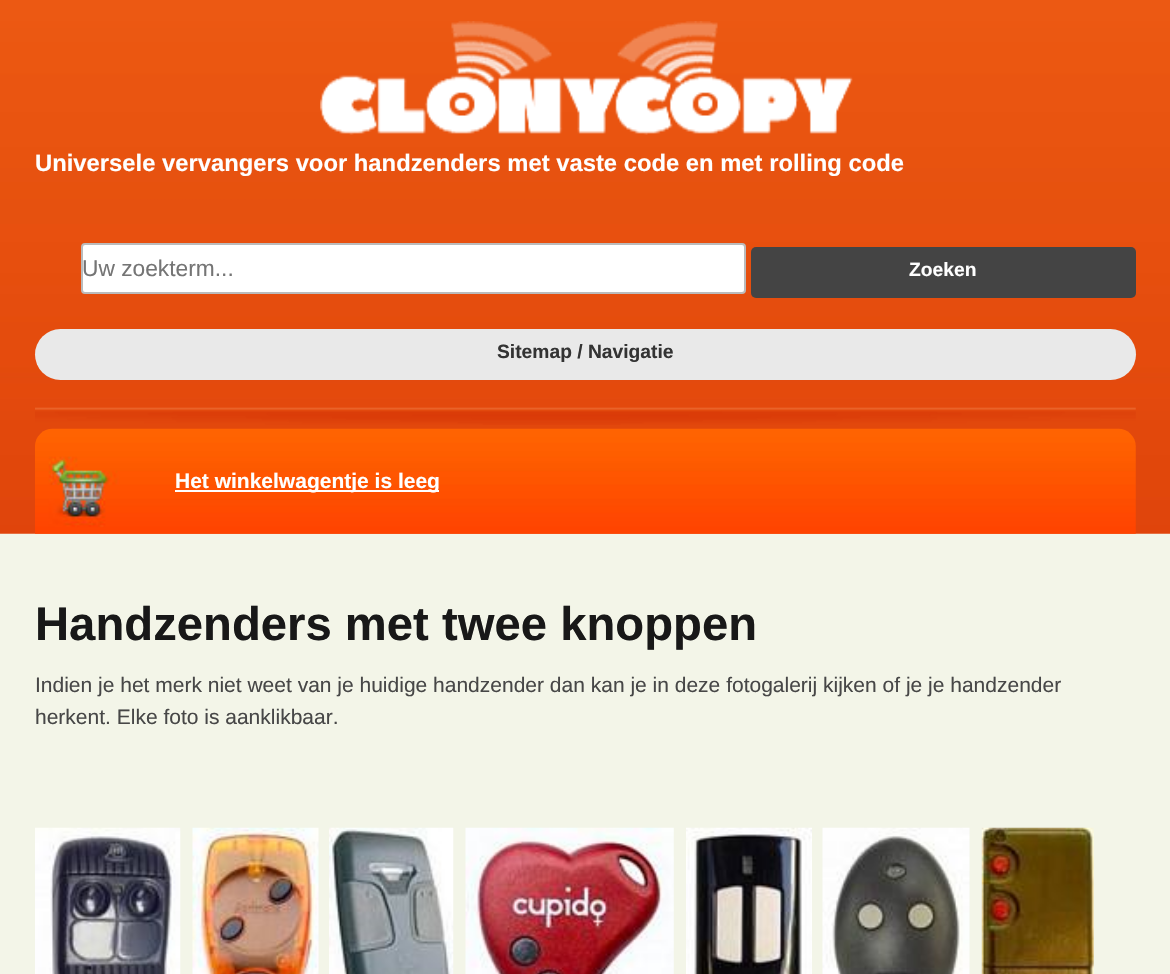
static SkFont makeFont(const char* family, int weight, float size, bool italic = false) {
  SkFontStyle style(weight, SkFontStyle::kNormal_Width,
    italic ? SkFontStyle::kItalic_Slant : SkFontStyle::kUpright_Slant);
  SkFont result(fontMgr->matchFamilyStyle(family, style), size);
  result.setSubpixel(true);
  return result;
}

static void text(SkCanvas* c, const char* s, float x, float y, const SkFont& font, SkColor color) {
  SkPaint ink(SkColor4f::FromColor(color));
  ink.setAntiAlias(true);
  c->drawString(s, x, y, font, ink);
}

static void box(SkCanvas* c, float l, float t, float r, float b, SkColor color) {
  SkPaint ink(SkColor4f::FromColor(color));
  ink.setAntiAlias(true);
  c->drawRect(SkRect::MakeLTRB(l, t, r, b), ink);
}

static void roundBox(SkCanvas* c, float l, float t, float r, float b, float radius, SkColor color) {
  SkPaint ink(SkColor4f::FromColor(color));
  ink.setAntiAlias(true);
  c->drawRoundRect(SkRect::MakeLTRB(l, t, r, b), radius, radius, ink);
}

static void picture(SkCanvas* c, const char* path, float l, float t, float r, float b) {
  auto image = SkImages::DeferredFromEncodedData(SkData::MakeFromFileName(path));
  c->drawImageRect(image, SkRect::MakeLTRB(l, t, r, b), SkSamplingOptions());
}

void draw(SkCanvas* c) {
  SkPaint paint;
  paint.setAntiAlias(true);
  c->clear(0xfff3f5e8);
  picture(c, "img_01.png", 0, 0, 1170, 534);
  picture(c, "img_02.png", 320, 21, 853, 135);
  SkFont face1 = makeFont("Liberation Sans", 700, 23.8f);
  text(c, "Universele vervangers voor handzenders met vaste code en met rolling code", 35, 171, face1, 0xffffffff);
  paint.setColor(0xffffffff);
  c->drawRoundRect(SkRect::MakeLTRB(82, 244, 745, 293), 3, 3, paint);
  paint.setStyle(SkPaint::kStroke_Style);
  paint.setStrokeWidth(2);
  paint.setColor(0xffbbbbbb);
  c->drawRoundRect(SkRect::MakeLTRB(82, 244, 745, 293), 3, 3, paint);
  SkFont face2 = makeFont("Liberation Sans", 400, 22.75f);
  text(c, "Uw zoekterm...", 82, 276, face2, 0xff757575);
  roundBox(c, 751, 247, 1136, 298, 5, 0xff444444);
  SkFont face3 = makeFont("Liberation Sans", 700, 19.25f);
  text(c, "Zoeken", 909, 276, face3, 0xffffffff);
  picture(c, "img_03.png", 35, 407, 1136, 425);
  roundBox(c, 35, 329, 1136, 380, 25.5f, 0xffe9e9e9);
  text(c, "Sitemap / Navigatie", 497, 358, face3, 0xff333333);
  picture(c, "img_04.png", 35, 428, 1136, 534);
  box(c, 175, 490, 439, 492, 0xffffffff);
  SkFont face4 = makeFont("Liberation Sans", 700, 21);
  text(c, "Het winkelwagentje is leeg", 175, 488, face4, 0xffffffff);
  SkFont face5 = makeFont("Liberation Sans", 700, 47.25f);
  text(c, "Handzenders met twee knoppen", 35, 640, face5, 0xff181818);
  SkFont face6 = makeFont("Liberation Sans", 400, 21);
  text(c, "Indien je het merk niet weet van je huidige handzender dan kan je in deze fotogalerij kijken of je je handzender", 35, 692, face6, 0xff474747);
  text(c, "herkent. Elke foto is aanklikbaar.", 35, 724, face6, 0xff474747);
  picture(c, "img_05.png", 35, 827, 181, 974);
  picture(c, "img_06.png", 192, 827, 319, 974);
  picture(c, "img_07.png", 329, 827, 454, 974);
  picture(c, "img_08.png", 465, 827, 674, 974);
  picture(c, "img_09.png", 686, 827, 812, 974);
  picture(c, "img_10.png", 822, 827, 970, 974);
  picture(c, "img_11.png", 981, 827, 1094, 974);
}
